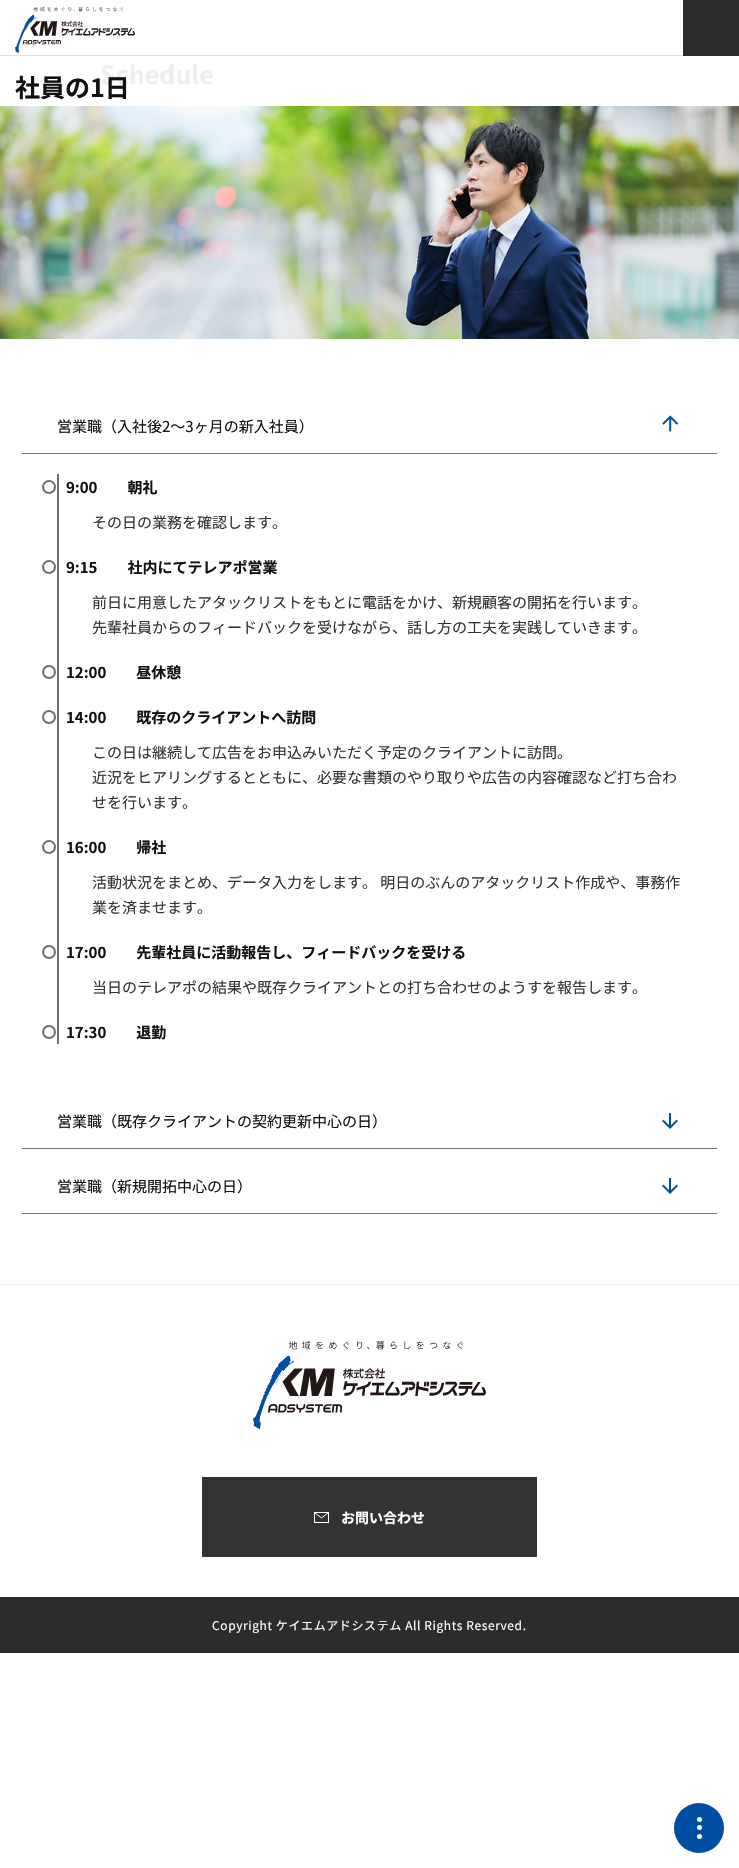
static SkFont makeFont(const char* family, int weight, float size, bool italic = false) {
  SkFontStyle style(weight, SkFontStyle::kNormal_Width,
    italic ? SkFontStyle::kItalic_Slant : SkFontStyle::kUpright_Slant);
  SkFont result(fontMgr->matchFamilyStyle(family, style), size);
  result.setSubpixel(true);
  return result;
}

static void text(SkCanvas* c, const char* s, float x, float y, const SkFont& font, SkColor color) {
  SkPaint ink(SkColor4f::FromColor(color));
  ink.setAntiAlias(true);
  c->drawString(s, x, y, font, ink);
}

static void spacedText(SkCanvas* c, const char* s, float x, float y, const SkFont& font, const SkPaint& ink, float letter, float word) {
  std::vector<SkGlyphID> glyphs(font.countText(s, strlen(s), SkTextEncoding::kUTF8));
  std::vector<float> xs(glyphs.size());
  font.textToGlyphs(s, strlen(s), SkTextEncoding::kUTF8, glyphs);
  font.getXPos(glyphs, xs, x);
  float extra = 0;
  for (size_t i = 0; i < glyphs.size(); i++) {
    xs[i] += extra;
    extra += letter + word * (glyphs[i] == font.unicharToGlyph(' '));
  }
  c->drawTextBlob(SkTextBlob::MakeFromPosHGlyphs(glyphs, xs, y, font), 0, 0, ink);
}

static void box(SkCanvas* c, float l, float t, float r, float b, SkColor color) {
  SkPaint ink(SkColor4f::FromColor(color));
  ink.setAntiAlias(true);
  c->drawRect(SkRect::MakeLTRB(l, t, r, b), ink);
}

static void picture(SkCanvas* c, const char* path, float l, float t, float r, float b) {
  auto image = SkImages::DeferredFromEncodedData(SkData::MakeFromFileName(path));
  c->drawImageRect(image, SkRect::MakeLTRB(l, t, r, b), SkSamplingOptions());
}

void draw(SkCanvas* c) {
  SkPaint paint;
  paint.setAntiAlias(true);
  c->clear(0xffffffff);
  box(c, 0, 55, 683, 56, 0xffdfdfdf);
  picture(c, "img_01.png", 15, 7, 135, 53);
  box(c, 683, 0, 739, 56, 0xff2c2c2c);
  SkFont face1 = makeFont("Noto Sans JP", 700, 25);
  text(c, "Schedule", 100, 84, face1, 0xffeeeeee);
  text(c, "社員の1日", 15, 97, face1, 0xff111111);
  picture(c, "img_02.png", 0, 106, 739, 339);
  box(c, 22, 453, 717, 454, 0xff707070);
  SkFont face2 = makeFont("Noto Sans JP", 400, 15);
  text(c, "営業職（入社後2～3ヶ月の新入社員）", 57, 432, face2, 0xff111111);
  picture(c, "img_03.png", 662, 415, 679, 432);
  box(c, 57, 474, 59, 1044, 0xff707070);
  paint.setStyle(SkPaint::kStroke_Style);
  paint.setStrokeWidth(2);
  paint.setColor(0xff707070);
  c->drawCircle(49, 487, 6, paint);
  SkFont face3 = makeFont("Noto Sans JP", 700, 15);
  text(c, "9:00　　朝礼", 66, 493, face3, 0xff111111);
  text(c, "その日の業務を確認します。", 92, 528, face2, 0xff333333);
  c->drawCircle(49, 567, 6, paint);
  text(c, "9:15　　社内にてテレアポ営業", 66, 573, face3, 0xff111111);
  text(c, "前日に用意したアタックリストをもとに電話をかけ、新規顧客の開拓を行います。", 92, 608, face2, 0xff333333);
  text(c, "先輩社員からのフィードバックを受けながら、話し方の工夫を実践していきます。", 92, 633, face2, 0xff333333);
  c->drawCircle(49, 672, 6, paint);
  text(c, "12:00　　昼休憩", 66, 678, face3, 0xff111111);
  c->drawCircle(49, 717, 6, paint);
  text(c, "14:00　　既存のクライアントへ訪問", 66, 723, face3, 0xff111111);
  text(c, "この日は継続して広告をお申込みいただく予定のクライアントに訪問。", 92, 758, face2, 0xff333333);
  text(c, "近況をヒアリングするとともに、必要な書類のやり取りや広告の内容確認など打ち合わ", 92, 783, face2, 0xff333333);
  text(c, "せを行います。", 92, 808, face2, 0xff333333);
  c->drawCircle(49, 847, 6, paint);
  text(c, "16:00　　帰社", 66, 853, face3, 0xff111111);
  text(c, "活動状況をまとめ、データ入力をします。 明日のぶんのアタックリスト作成や、事務作", 92, 888, face2, 0xff333333);
  text(c, "業を済ませます。", 92, 913, face2, 0xff333333);
  c->drawCircle(49, 952, 6, paint);
  text(c, "17:00　　先輩社員に活動報告し、フィードバックを受ける", 66, 958, face3, 0xff111111);
  text(c, "当日のテレアポの結果や既存クライアントとの打ち合わせのようすを報告します。", 92, 993, face2, 0xff333333);
  c->drawCircle(49, 1032, 6, paint);
  text(c, "17:30　　退勤", 66, 1038, face3, 0xff111111);
  box(c, 22, 1148, 717, 1149, 0xff707070);
  text(c, "営業職（既存クライアントの契約更新中心の日）", 57, 1127, face2, 0xff111111);
  picture(c, "img_04.png", 662, 1113, 678, 1129);
  box(c, 22, 1213, 717, 1214, 0xff707070);
  text(c, "営業職（新規開拓中心の日）", 57, 1192, face2, 0xff111111);
  picture(c, "img_04.png", 662, 1178, 678, 1194);
  box(c, 0, 1284, 739, 1285, 0xfff0f0f0);
  picture(c, "img_05.png", 253, 1341, 486, 1429);
  box(c, 202, 1477, 537, 1557, 0xff333333);
  paint.setStrokeWidth(1);
  paint.setColor(0xffffffff);
  c->drawRect(SkRect::MakeLTRB(314.5f, 1512.5f, 328.5f, 1522.5f), paint);
  SkFont face4 = makeFont("Noto Sans JP", 700, 14);
  text(c, "お問い合わせ", 341, 1523, face4, 0xffffffff);
  paint.setStrokeJoin(SkPaint::kRound_Join);
  c->drawPath(SkPathBuilder().moveTo(321.5f, 1518).lineTo(328.5f, 1512.5f).lineTo(314.5f, 1512.5f).close().detach(), paint);
  box(c, 0, 1597, 739, 1653, 0xff2c2c2c);
  SkFont face5 = makeFont("Noto Sans JP", 400, 12);
  paint.setStyle(SkPaint::kFill_Style);
  spacedText(c, "Copyright ケイエムアドシステム All Rights Reserved.", 212, 1630, face5, paint, 0.6f, 0);
  paint.setColor(0xff004ea2);
  c->drawCircle(699, 1828, 25, paint);
  paint.setColor(0xffffffff);
  c->drawCircle(699.5f, 1819.5f, 2.5f, paint);
  c->drawCircle(699.5f, 1827.5f, 2.5f, paint);
  c->drawCircle(699.5f, 1836.5f, 2.5f, paint);
}
